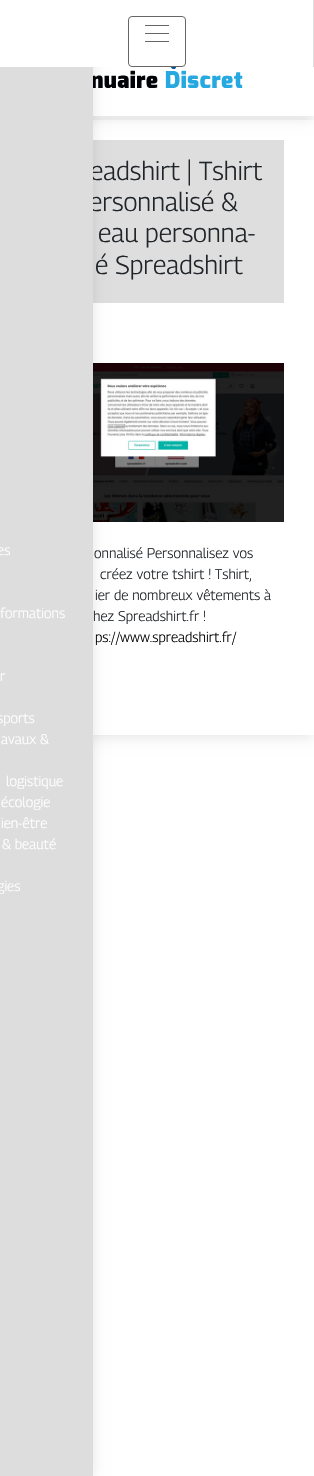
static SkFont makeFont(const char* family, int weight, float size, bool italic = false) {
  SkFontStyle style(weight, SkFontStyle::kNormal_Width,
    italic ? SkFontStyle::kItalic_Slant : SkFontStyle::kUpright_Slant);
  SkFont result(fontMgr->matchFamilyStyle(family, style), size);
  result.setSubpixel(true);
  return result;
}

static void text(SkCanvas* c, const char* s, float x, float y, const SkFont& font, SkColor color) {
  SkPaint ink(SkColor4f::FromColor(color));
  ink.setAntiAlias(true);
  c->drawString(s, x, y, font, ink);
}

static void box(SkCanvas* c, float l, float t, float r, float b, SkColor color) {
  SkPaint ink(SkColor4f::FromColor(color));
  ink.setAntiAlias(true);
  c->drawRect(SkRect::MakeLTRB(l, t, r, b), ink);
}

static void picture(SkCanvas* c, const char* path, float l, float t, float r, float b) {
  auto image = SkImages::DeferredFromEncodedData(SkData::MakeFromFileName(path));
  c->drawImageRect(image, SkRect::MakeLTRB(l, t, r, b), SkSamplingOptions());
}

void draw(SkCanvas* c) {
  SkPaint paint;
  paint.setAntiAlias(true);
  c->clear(0xffffffff);
  c->save();
  c->clipPath(SkPathBuilder(SkPathFillType::kEvenOdd).moveTo(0, 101).lineTo(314, 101).lineTo(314, 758).lineTo(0, 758).close().moveTo(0, 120).lineTo(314, 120).lineTo(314, 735).lineTo(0, 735).close().detach(), true);
  paint.setColor(0x1a000000);
  paint.setMaskFilter(SkMaskFilter::MakeBlur(kNormal_SkBlurStyle, 6.5f));
  c->drawRect(SkRect::MakeLTRB(0, 122, 314, 737), paint);
  paint.setMaskFilter(nullptr);
  c->restore();
  box(c, 93, 140, 284, 303, 0xffdedede);
  SkFont face1 = makeFont("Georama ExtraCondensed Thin", 100, 26);
  text(c, "eadshirt | Tshirt", 90, 180, face1, 0xff212529);
  text(c, "ersonnalisé &", 89, 211, face1, 0xff212529);
  text(c, "eau personna-", 98, 242, face1, 0xff212529);
  text(c, "é Spreadshirt", 95, 274, face1, 0xff212529);
  picture(c, "img_01.png", 93, 363, 284, 522);
  SkFont face2 = makeFont("Georama ExtraCondensed Thin", 100, 14);
  text(c, "onnalisé Personnalisez vos", 94, 558, face2, 0xff212529);
  text(c, "créez votre tshirt ! Tshirt,", 100, 579, face2, 0xff212529);
  text(c, "ier de nombreux vêtements à", 95, 600, face2, 0xff212529);
  text(c, "hez Spreadshirt.fr !", 93, 621, face2, 0xff212529);
  text(c, "ps://www.spreadshirt.fr/", 95, 642, face2, 0xff000000);
  paint.setMaskFilter(SkMaskFilter::MakeBlur(kNormal_SkBlurStyle, 6.5f));
  c->drawRect(SkRect::MakeLTRB(0, 2, 314, 118), paint);
  paint.setMaskFilter(nullptr);
  box(c, 93, 67, 314, 116, 0xffffffff);
  picture(c, "img_02.png", 93, 67, 243, 88);
  paint.setMaskFilter(SkMaskFilter::MakeBlur(kNormal_SkBlurStyle, 6.5f));
  c->drawRect(SkRect::MakeLTRB(-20, 2, 93, 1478), paint);
  paint.setMaskFilter(nullptr);
  box(c, 0, 0, 313, 67, 0xffffffff);
  box(c, 313, 0, 314, 67, 0xffdddddd);
  paint.setStyle(SkPaint::kStroke_Style);
  paint.setStrokeWidth(1);
  paint.setColor(0xff666666);
  c->drawRoundRect(SkRect::MakeLTRB(128.5f, 16.5f, 185.5f, 66.5f), 3.5f, 3.5f, paint);
  box(c, 145, 25, 169, 26, 0xff666666);
  box(c, 145, 33, 169, 34, 0xff666666);
  box(c, 145, 41, 169, 42, 0xff666666);
  box(c, 0, 67, 93, 1476, 0xffdddddd);
  text(c, "es", -3, 555, face2, 0xffffffff);
  text(c, "formations", 0, 618, face2, 0xffffffff);
  text(c, "r", 0, 681, face2, 0xffffffff);
  text(c, "sports", -3, 723, face2, 0xffffffff);
  text(c, "avaux &", 1, 744, face2, 0xffffffff);
  text(c, "logistique", 6, 786, face2, 0xffffffff);
  text(c, "écologie", 1, 807, face2, 0xffffffff);
  text(c, "ien-être", 1, 828, face2, 0xffffffff);
  text(c, "& beauté", 2, 849, face2, 0xffffffff);
  text(c, "gies", -3, 891, face2, 0xffffffff);
}
